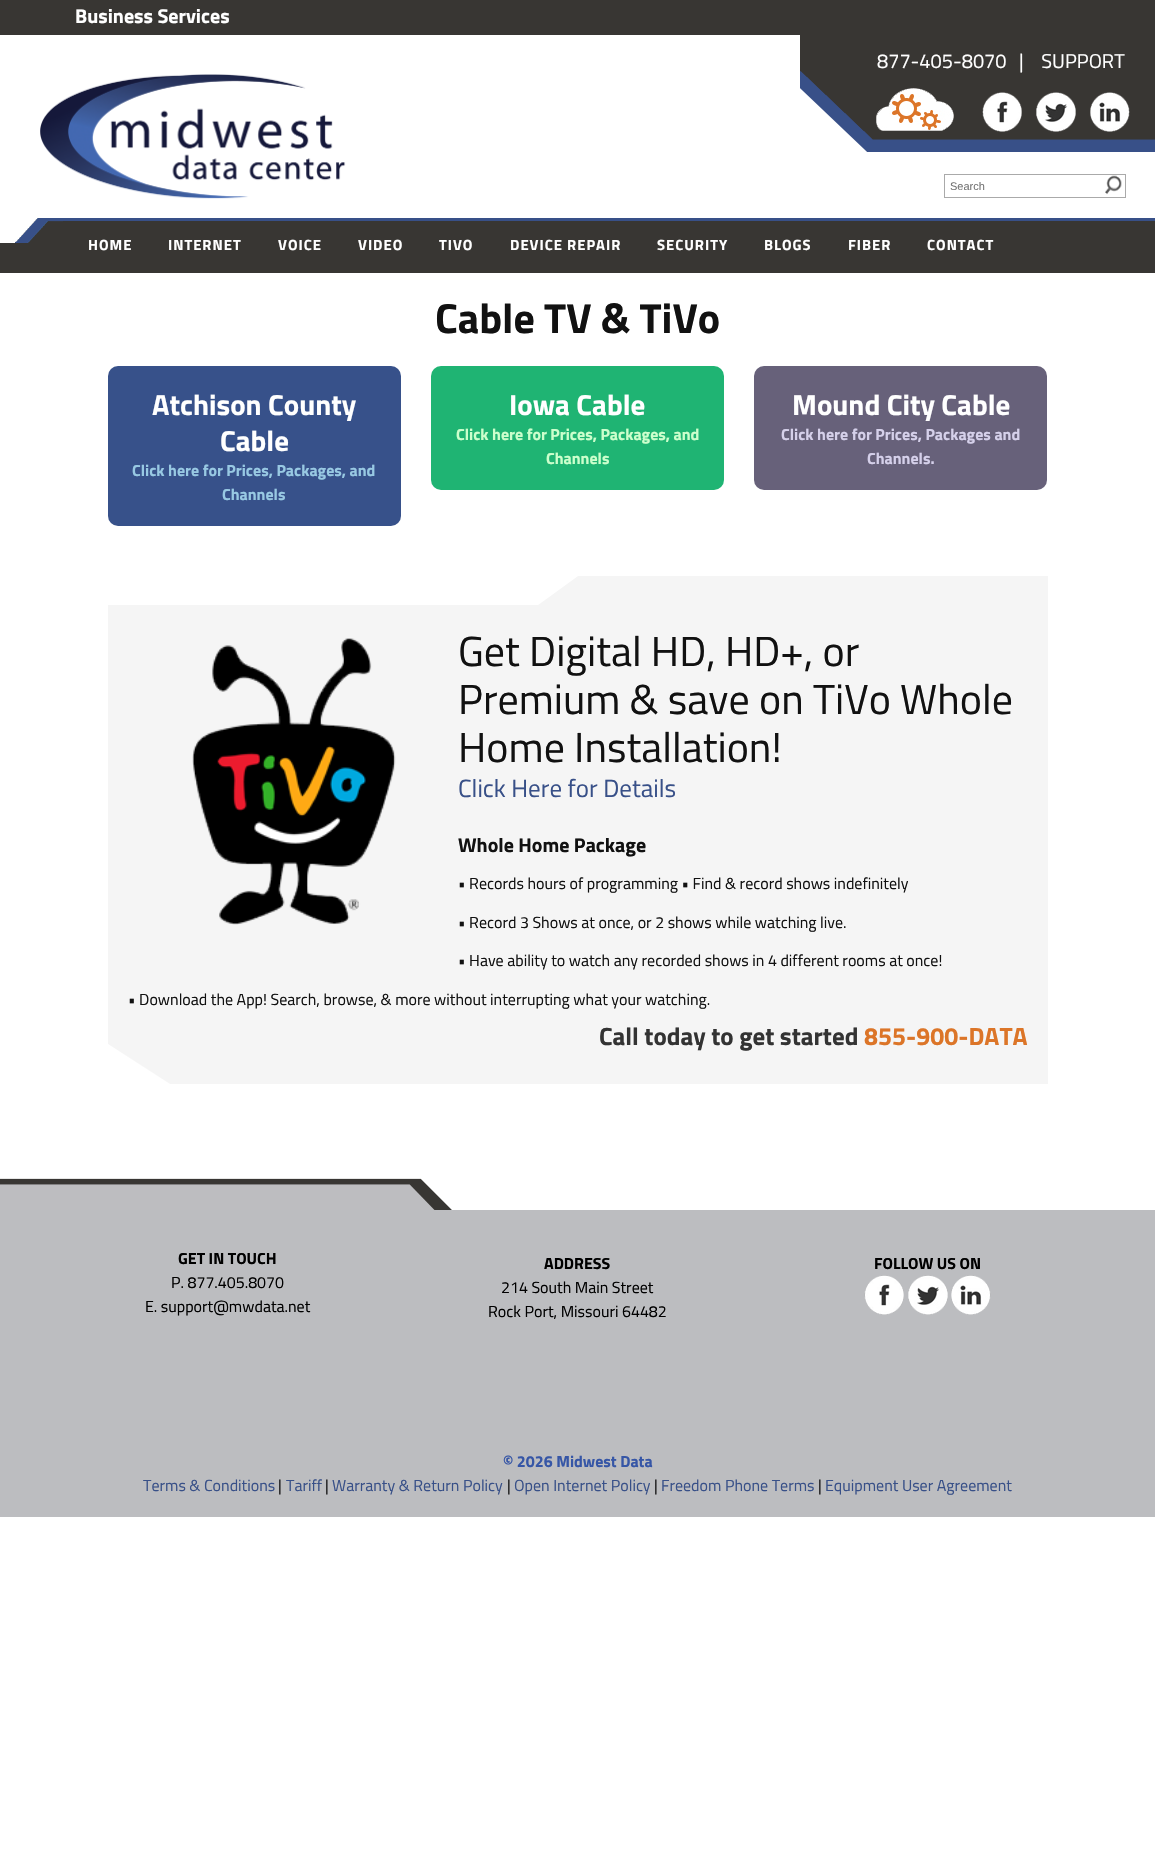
static SkFont makeFont(const char* family, int weight, float size, bool italic = false) {
  SkFontStyle style(weight, SkFontStyle::kNormal_Width,
    italic ? SkFontStyle::kItalic_Slant : SkFontStyle::kUpright_Slant);
  SkFont result(fontMgr->matchFamilyStyle(family, style), size);
  result.setSubpixel(true);
  return result;
}

static void text(SkCanvas* c, const char* s, float x, float y, const SkFont& font, SkColor color) {
  SkPaint ink(SkColor4f::FromColor(color));
  ink.setAntiAlias(true);
  c->drawString(s, x, y, font, ink);
}

static void spacedText(SkCanvas* c, const char* s, float x, float y, const SkFont& font, const SkPaint& ink, float letter, float word) {
  std::vector<SkGlyphID> glyphs(font.countText(s, strlen(s), SkTextEncoding::kUTF8));
  std::vector<float> xs(glyphs.size());
  font.textToGlyphs(s, strlen(s), SkTextEncoding::kUTF8, glyphs);
  font.getXPos(glyphs, xs, x);
  float extra = 0;
  for (size_t i = 0; i < glyphs.size(); i++) {
    xs[i] += extra;
    extra += letter + word * (glyphs[i] == font.unicharToGlyph(' '));
  }
  c->drawTextBlob(SkTextBlob::MakeFromPosHGlyphs(glyphs, xs, y, font), 0, 0, ink);
}

static void box(SkCanvas* c, float l, float t, float r, float b, SkColor color) {
  SkPaint ink(SkColor4f::FromColor(color));
  ink.setAntiAlias(true);
  c->drawRect(SkRect::MakeLTRB(l, t, r, b), ink);
}

static void roundBox(SkCanvas* c, float l, float t, float r, float b, float radius, SkColor color) {
  SkPaint ink(SkColor4f::FromColor(color));
  ink.setAntiAlias(true);
  c->drawRoundRect(SkRect::MakeLTRB(l, t, r, b), radius, radius, ink);
}

static void picture(SkCanvas* c, const char* path, float l, float t, float r, float b) {
  auto image = SkImages::DeferredFromEncodedData(SkData::MakeFromFileName(path));
  c->drawImageRect(image, SkRect::MakeLTRB(l, t, r, b), SkSamplingOptions());
}

void draw(SkCanvas* c) {
  SkPaint paint;
  paint.setAntiAlias(true);
  c->clear(0xffffffff);
  box(c, 0, 0, 1155, 35, 0xff383633);
  SkFont face1 = makeFont("Titillium Web", 700, 20);
  text(c, "Business Services", 75, 23, face1, 0xffffffff);
  picture(c, "img_01.png", 800, 35, 1155, 152);
  SkFont face2 = makeFont("Titillium Web", 400, 20);
  text(c, "877-405-8070", 877, 68, face2, 0xffffffff);
  text(c, "|    SUPPORT", 1019, 68, face2, 0xffffffff);
  picture(c, "img_02.png", 876, 88, 954, 131);
  picture(c, "img_03.png", 982, 92, 1022, 132);
  picture(c, "img_04.png", 1036, 92, 1076, 132);
  picture(c, "img_05.png", 1090, 92, 1130, 132);
  picture(c, "img_06.png", 40, 74, 346, 199);
  paint.setStyle(SkPaint::kStroke_Style);
  paint.setStrokeWidth(1);
  paint.setColor(0xffaaaaaa);
  c->drawRect(SkRect::MakeLTRB(944.5f, 174.5f, 1125.5f, 197.5f), paint);
  SkFont face3 = makeFont("Liberation Sans", 400, 11);
  text(c, "Search", 950, 190, face3, 0xff757575);
  picture(c, "img_07.png", 1105, 175, 1122, 195);
  box(c, 60, 218, 1155, 221, 0xff385088);
  picture(c, "img_08.png", 15, 218, 63, 243);
  box(c, 63, 221, 1155, 243, 0xff383633);
  box(c, 0, 243, 1155, 273, 0xff383633);
  SkFont face4 = makeFont("Titillium Web", 700, 14.75f);
  paint.setStyle(SkPaint::kFill_Style);
  paint.setColor(0xffffffff);
  spacedText(c, "HOME", 88, 250, face4, paint, 1, 0);
  spacedText(c, "INTERNET", 168, 250, face4, paint, 1, 0);
  spacedText(c, "VOICE", 278, 250, face4, paint, 1, 0);
  spacedText(c, "VIDEO", 358, 250, face4, paint, 1, 0);
  spacedText(c, "TIVO", 439, 250, face4, paint, 1, 0);
  spacedText(c, "DEVICE REPAIR", 510, 250, face4, paint, 1, 0);
  spacedText(c, "SECURITY", 657, 250, face4, paint, 1, 0);
  spacedText(c, "BLOGS", 764, 250, face4, paint, 1, 0);
  spacedText(c, "FIBER", 848, 250, face4, paint, 1, 0);
  spacedText(c, "CONTACT", 927, 250, face4, paint, 1, 0);
  SkFont face5 = makeFont("Titillium Web", 700, 42);
  text(c, "Cable TV & TiVo", 435, 333, face5, 0xff111111);
  roundBox(c, 108, 366, 401, 526, 10, 0xff37518a);
  SkFont face6 = makeFont("Titillium Web", 700, 29);
  text(c, "Atchison County", 152, 415, face6, 0xffffffff);
  text(c, "Cable", 220, 451, face6, 0xffffffff);
  SkFont face7 = makeFont("Titillium Web", 700, 16);
  text(c, "Click here for Prices, Packages, and", 132, 476, face7, 0xff98c9e3);
  text(c, "Channels", 222, 500, face7, 0xff98c9e3);
  roundBox(c, 431, 366, 724, 490, 10, 0xff1fb473);
  text(c, "Iowa Cable", 509, 415, face6, 0xffffffff);
  text(c, "Click here for Prices, Packages, and", 456, 440, face7, 0xffccffcc);
  text(c, "Channels", 546, 464, face7, 0xffccffcc);
  roundBox(c, 754, 366, 1047, 490, 10, 0xff67617a);
  text(c, "Mound City Cable", 792, 415, face6, 0xffffffff);
  text(c, "Click here for Prices, Packages and", 781, 440, face7, 0xffd5d0ea);
  text(c, "Channels.", 867, 464, face7, 0xffd5d0ea);
  box(c, 108, 576, 1048, 1084, 0xfff5f5f5);
  picture(c, "img_09.png", 108, 576, 578, 605);
  picture(c, "img_10.png", 192, 638, 396, 925);
  SkFont face8 = makeFont("Titillium Web", 400, 42);
  text(c, "Get Digital HD, HD+, or", 458, 666, face8, 0xff111111);
  text(c, "Premium & save on TiVo Whole", 458, 714, face8, 0xff111111);
  text(c, "Home Installation!", 458, 762, face8, 0xff111111);
  SkFont face9 = makeFont("Titillium Web", 400, 25);
  text(c, "Click Here for Details", 458, 797, face9, 0xff385088);
  text(c, "Whole Home Package", 458, 852, face1, 0xff111111);
  SkFont face10 = makeFont("Titillium Web", 400, 16);
  text(c, "• Records hours of programming • Find & record shows indefinitely", 458, 889, face10, 0xff111111);
  text(c, "• Record 3 Shows at once, or 2 shows while watching live.", 458, 928, face10, 0xff111111);
  text(c, "• Have ability to watch any recorded shows in 4 different rooms at once!", 458, 966, face10, 0xff111111);
  text(c, "• Download the App! Search, browse, & more without interrupting what your watching.", 128, 1005, face10, 0xff111111);
  SkFont face11 = makeFont("Titillium Web", 700, 25);
  text(c, "Call today to get started", 599, 1045, face11, 0xff333333);
  text(c, "855-900-DATA", 864, 1045, face11, 0xffdc7528);
  picture(c, "img_11.png", 108, 1044, 170, 1084);
  picture(c, "img_12.png", 0, 1178, 452, 1210);
  box(c, 0, 1210, 1155, 1517, 0xffbcbdc0);
  text(c, "GET IN TOUCH", 178, 1264, face7, 0xff000000);
  text(c, "P. 877.405.8070", 171, 1288, face10, 0xff000000);
  text(c, "E. support@mwdata.net", 145, 1312, face10, 0xff000000);
  text(c, "ADDRESS", 544, 1269, face7, 0xff000000);
  text(c, "214 South Main Street", 501, 1293, face10, 0xff000000);
  text(c, "Rock Port, Missouri 64482", 488, 1317, face10, 0xff000000);
  text(c, "FOLLOW US ON", 874, 1269, face7, 0xff000000);
  picture(c, "img_13.png", 864, 1275, 904, 1315);
  picture(c, "img_14.png", 908, 1275, 948, 1315);
  picture(c, "img_15.png", 951, 1275, 991, 1315);
  text(c, "© 2026 Midwest Data", 503, 1467, face7, 0xff3656a6);
  text(c, "Terms & Conditions", 143, 1491, face10, 0xff385088);
  text(c, "|", 278, 1491, face10, 0xff111111);
  text(c, "Tariff", 286, 1491, face10, 0xff385088);
  text(c, "|", 325, 1491, face10, 0xff111111);
  text(c, "Warranty & Return Policy", 332, 1491, face10, 0xff385088);
  text(c, "|", 507, 1491, face10, 0xff111111);
  text(c, "Open Internet Policy", 514, 1491, face10, 0xff385088);
  text(c, "|", 654, 1491, face10, 0xff111111);
  text(c, "Freedom Phone Terms", 661, 1491, face10, 0xff385088);
  text(c, "|", 818, 1491, face10, 0xff111111);
  text(c, "Equipment User Agreement", 825, 1491, face10, 0xff385088);
}
